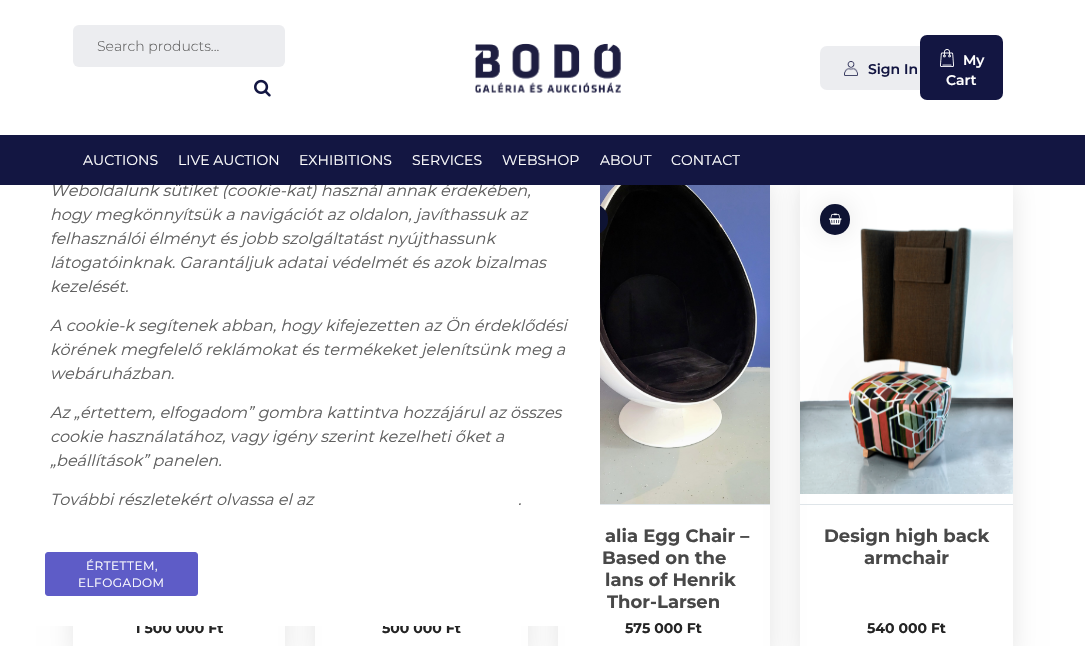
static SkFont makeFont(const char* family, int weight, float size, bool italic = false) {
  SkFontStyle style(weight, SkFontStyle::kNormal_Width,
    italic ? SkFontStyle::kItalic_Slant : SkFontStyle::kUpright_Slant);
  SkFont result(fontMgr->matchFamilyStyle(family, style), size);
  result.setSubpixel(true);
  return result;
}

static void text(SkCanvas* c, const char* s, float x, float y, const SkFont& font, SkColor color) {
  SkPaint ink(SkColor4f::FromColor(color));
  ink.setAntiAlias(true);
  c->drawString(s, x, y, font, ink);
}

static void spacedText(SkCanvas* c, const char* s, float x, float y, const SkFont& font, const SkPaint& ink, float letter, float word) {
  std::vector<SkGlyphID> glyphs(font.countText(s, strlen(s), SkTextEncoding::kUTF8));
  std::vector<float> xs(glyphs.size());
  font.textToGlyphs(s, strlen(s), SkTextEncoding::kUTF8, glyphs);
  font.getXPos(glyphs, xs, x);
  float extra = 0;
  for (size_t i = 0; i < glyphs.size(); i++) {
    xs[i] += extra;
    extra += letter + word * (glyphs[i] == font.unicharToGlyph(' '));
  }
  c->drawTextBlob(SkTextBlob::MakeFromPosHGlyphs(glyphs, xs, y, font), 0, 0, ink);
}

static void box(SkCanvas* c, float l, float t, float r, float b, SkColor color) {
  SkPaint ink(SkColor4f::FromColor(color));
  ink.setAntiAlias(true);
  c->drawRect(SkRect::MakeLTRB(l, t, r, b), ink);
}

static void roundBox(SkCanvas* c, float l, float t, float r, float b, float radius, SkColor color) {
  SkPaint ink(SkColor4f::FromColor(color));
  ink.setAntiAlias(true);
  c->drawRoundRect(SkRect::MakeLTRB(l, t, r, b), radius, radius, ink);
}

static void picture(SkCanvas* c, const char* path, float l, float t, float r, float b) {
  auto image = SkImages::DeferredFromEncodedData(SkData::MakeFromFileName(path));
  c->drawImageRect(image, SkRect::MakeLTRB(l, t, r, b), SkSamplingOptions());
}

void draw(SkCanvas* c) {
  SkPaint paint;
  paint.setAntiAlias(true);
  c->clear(0xffffffff);
  roundBox(c, 73, 25, 285, 67, 6, 0xffecedf0);
  SkFont face1 = makeFont("Montserrat", 100, 14);
  text(c, "Search products...", 97, 51, face1, 0xff606060);
  picture(c, "img_01.png", 254, 79, 271, 97);
  picture(c, "img_02.png", 475, 43, 621, 93);
  roundBox(c, 820, 46, 945, 90, 7, 0xffecedf0);
  picture(c, "img_03.png", 844, 61, 858, 76);
  SkFont face2 = makeFont("Montserrat", 600, 14);
  text(c, "Sign In", 868, 74, face2, 0xff131642);
  roundBox(c, 920, 35, 1003, 100, 7, 0xff131642);
  picture(c, "img_04.png", 940, 49, 954, 67);
  text(c, "My", 963, 65, face2, 0xffffffff);
  text(c, "Cart", 946, 85, face2, 0xffffffff);
  c->save();
  c->clipPath(SkPathBuilder(SkPathFillType::kEvenOdd).moveTo(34, 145).lineTo(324, 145).lineTo(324, 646).lineTo(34, 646).close().moveTo(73, 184).lineTo(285, 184).lineTo(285, 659).lineTo(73, 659).close().detach(), true);
  paint.setColor(0x1a000000);
  paint.setMaskFilter(SkMaskFilter::MakeBlur(kNormal_SkBlurStyle, 12.5f));
  c->drawRect(SkRect::MakeLTRB(73, 184, 285, 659), paint);
  paint.setMaskFilter(nullptr);
  c->restore();
  SkFont face3 = makeFont("Montserrat", 700, 14);
  text(c, "1 500 000 Ft", 135, 633, face3, 0xff242424);
  c->save();
  c->clipPath(SkPathBuilder(SkPathFillType::kEvenOdd).moveTo(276, 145).lineTo(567, 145).lineTo(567, 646).lineTo(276, 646).close().moveTo(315, 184).lineTo(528, 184).lineTo(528, 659).lineTo(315, 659).close().detach(), true);
  paint.setMaskFilter(SkMaskFilter::MakeBlur(kNormal_SkBlurStyle, 12.5f));
  c->drawRect(SkRect::MakeLTRB(315, 184, 528, 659), paint);
  paint.setMaskFilter(nullptr);
  c->restore();
  text(c, "500 000 Ft", 382, 633, face3, 0xff242424);
  c->save();
  c->clipPath(SkPathBuilder(SkPathFillType::kEvenOdd).moveTo(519, 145).lineTo(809, 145).lineTo(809, 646).lineTo(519, 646).close().moveTo(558, 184).lineTo(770, 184).lineTo(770, 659).lineTo(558, 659).close().detach(), true);
  paint.setMaskFilter(SkMaskFilter::MakeBlur(kNormal_SkBlurStyle, 12.5f));
  c->drawRect(SkRect::MakeLTRB(558, 184, 770, 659), paint);
  paint.setMaskFilter(nullptr);
  c->restore();
  picture(c, "img_05.png", 600, 185, 770, 504);
  paint.setMaskFilter(SkMaskFilter::MakeBlur(kNormal_SkBlurStyle, 12.5f));
  c->drawRoundRect(SkRect::MakeLTRB(578, 204, 608, 235), 15, 15, paint);
  paint.setMaskFilter(nullptr);
  roundBox(c, 578, 204, 608, 235, 15, 0xff0e1333);
  roundBox(c, 20, 153, 600, 626, 5, 0xffffffff);
  SkFont face4 = makeFont("Montserrat", 400, 16, true);
  text(c, "Weboldalunk sütiket (cookie-kat) használ annak érdekében,", 50, 196, face4, 0xff606060);
  box(c, 600, 504, 770, 505, 0xffdfe5e9);
  c->save();
  c->clipPath(SkPathBuilder(SkPathFillType::kEvenOdd).moveTo(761, 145).lineTo(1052, 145).lineTo(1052, 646).lineTo(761, 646).close().moveTo(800, 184).lineTo(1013, 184).lineTo(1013, 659).lineTo(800, 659).close().detach(), true);
  paint.setMaskFilter(SkMaskFilter::MakeBlur(kNormal_SkBlurStyle, 12.5f));
  c->drawRect(SkRect::MakeLTRB(800, 184, 1013, 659), paint);
  paint.setMaskFilter(nullptr);
  c->restore();
  picture(c, "img_07.png", 800, 227, 1013, 494);
  paint.setMaskFilter(SkMaskFilter::MakeBlur(kNormal_SkBlurStyle, 12.5f));
  c->drawRoundRect(SkRect::MakeLTRB(820, 204, 850, 235), 15, 15, paint);
  paint.setMaskFilter(nullptr);
  box(c, 0, 135, 1085, 185, 0xff131642);
  SkFont face5 = makeFont("Montserrat", 400, 14);
  text(c, "AUCTIONS", 83, 165, face5, 0xffffffff);
  text(c, "LIVE AUCTION", 178, 165, face5, 0xffffffff);
  text(c, "EXHIBITIONS", 299, 165, face5, 0xffffffff);
  text(c, "SERVICES", 412, 165, face5, 0xffffffff);
  text(c, "WEBSHOP", 502, 165, face5, 0xffffffff);
  text(c, "ABOUT", 600, 165, face5, 0xffffffff);
  text(c, "CONTACT", 671, 165, face5, 0xffffffff);
  text(c, "hogy megkönnyítsük a navigációt az oldalon, javíthassuk az", 50, 220, face4, 0xff606060);
  text(c, "felhasználói élményt és jobb szolgáltatást nyújthassunk", 50, 244, face4, 0xff606060);
  text(c, "látogatóinknak. Garantáljuk adatai védelmét és azok bizalmas", 50, 268, face4, 0xff606060);
  text(c, "kezelését.", 50, 292, face4, 0xff606060);
  text(c, "A cookie-k segítenek abban, hogy kifejezetten az Ön érdeklődési", 50, 331, face4, 0xff606060);
  text(c, "körének megfelelő reklámokat és termékeket jelenítsünk meg a", 50, 355, face4, 0xff606060);
  text(c, "webáruházban.", 50, 379, face4, 0xff606060);
  text(c, "Az „értettem, elfogadom” gombra kattintva hozzájárul az összes", 50, 418, face4, 0xff606060);
  text(c, "cookie használatához, vagy igény szerint kezelheti őket a", 50, 442, face4, 0xff606060);
  text(c, "„beállítások” panelen.", 50, 466, face4, 0xff606060);
  text(c, "További részletekért olvassa el az", 50, 505, face4, 0xff606060);
  text(c, ".", 518, 505, face4, 0xff606060);
  paint.setColor(0xff5e5cc7);
  c->drawRoundRect(SkRect::MakeLTRB(45.5f, 552.5f, 197.5f, 595.5f), 2.5f, 2.5f, paint);
  paint.setStyle(SkPaint::kStroke_Style);
  paint.setStrokeWidth(1);
  c->drawRoundRect(SkRect::MakeLTRB(45.5f, 552.5f, 197.5f, 595.5f), 2.5f, 2.5f, paint);
  SkFont face6 = makeFont("Montserrat", 400, 12);
  paint.setStyle(SkPaint::kFill_Style);
  paint.setColor(0xffffffff);
  spacedText(c, "ÉRTETTEM,", 86, 570, face6, paint, 0.5f, 0);
  spacedText(c, "ELFOGADOM", 78, 587, face6, paint, 0.5f, 0);
  SkFont face7 = makeFont("Montserrat", 700, 18);
  text(c, "alia Egg Chair –", 605, 542, face7, 0xff484848);
  text(c, "Based on the", 602, 564, face7, 0xff484848);
  text(c, "lans of Henrik", 605, 586, face7, 0xff484848);
  text(c, "Thor-Larsen", 607, 608, face7, 0xff484848);
  text(c, "575 000 Ft", 625, 633, face3, 0xff242424);
  roundBox(c, 820, 204, 850, 235, 15, 0xff0e1333);
  picture(c, "img_06.png", 829, 213, 842, 225);
  box(c, 800, 504, 1013, 505, 0xffdfe5e9);
  text(c, "Design high back", 824, 542, face7, 0xff484848);
  text(c, "armchair", 864, 564, face7, 0xff484848);
  text(c, "540 000 Ft", 867, 633, face3, 0xff242424);
}
